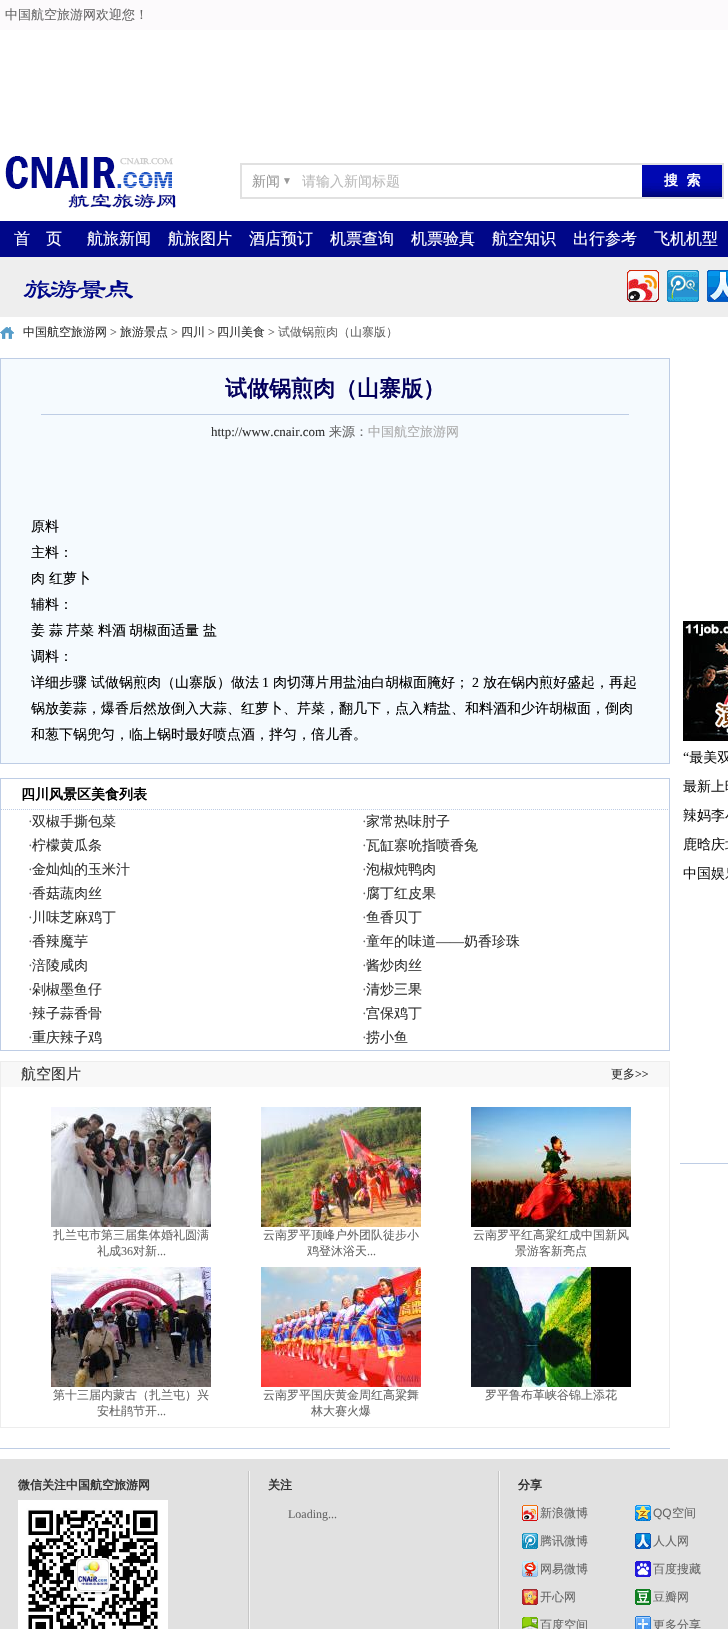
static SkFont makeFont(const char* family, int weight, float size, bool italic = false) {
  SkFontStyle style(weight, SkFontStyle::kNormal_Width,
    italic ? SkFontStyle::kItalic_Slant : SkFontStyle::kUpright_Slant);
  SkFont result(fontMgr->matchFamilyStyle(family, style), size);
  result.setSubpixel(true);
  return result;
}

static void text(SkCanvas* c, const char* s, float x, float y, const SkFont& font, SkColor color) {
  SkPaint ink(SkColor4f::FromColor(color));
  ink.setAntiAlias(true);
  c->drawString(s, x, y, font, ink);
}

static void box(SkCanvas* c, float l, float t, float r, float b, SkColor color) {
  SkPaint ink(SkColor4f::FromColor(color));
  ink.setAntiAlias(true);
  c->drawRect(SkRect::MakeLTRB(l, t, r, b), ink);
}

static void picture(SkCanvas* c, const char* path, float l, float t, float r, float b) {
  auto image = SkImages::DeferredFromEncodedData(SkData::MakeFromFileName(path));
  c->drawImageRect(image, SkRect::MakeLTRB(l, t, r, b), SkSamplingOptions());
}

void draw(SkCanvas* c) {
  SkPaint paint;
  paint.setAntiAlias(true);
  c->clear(0xffffffff);
  box(c, 0, 0, 728, 30, 0xfffcfafc);
  SkFont face1 = makeFont("WenQuanYi Zen Hei", 500, 13);
  text(c, "中国航空旅游网欢迎您！", 5, 19, face1, 0xff666666);
  picture(c, "img_01.png", 5, 156, 176, 208);
  paint.setStyle(SkPaint::kStroke_Style);
  paint.setStrokeWidth(2);
  paint.setColor(0xffe1e1e1);
  c->drawRect(SkRect::MakeLTRB(241, 164, 723, 198), paint);
  SkFont face2 = makeFont("WenQuanYi Zen Hei", 500, 14);
  text(c, "新闻", 252, 186, face2, 0xff999999);
  SkFont face3 = makeFont("Liberation Sans", 400, 10);
  text(c, "▼", 282, 184, face3, 0xff999999);
  text(c, "请输入新闻标题", 302, 186, face2, 0xffbbbbbb);
  box(c, 642, 165, 722, 183, 0xff0008b2);
  picture(c, "img_02.png", 642, 183, 722, 197);
  SkFont face4 = makeFont("WenQuanYi Zen Hei", 700, 14);
  text(c, "搜  索", 664, 185, face4, 0xffffffff);
  box(c, 0, 221, 728, 257, 0xff000789);
  SkFont face5 = makeFont("WenQuanYi Zen Hei", 500, 16);
  text(c, "首　页", 14, 244, face5, 0xffffffff);
  text(c, "航旅新闻", 87, 244, face5, 0xffffffff);
  text(c, "航旅图片", 168, 244, face5, 0xffffffff);
  text(c, "酒店预订", 249, 244, face5, 0xffffffff);
  text(c, "机票查询", 330, 244, face5, 0xffffffff);
  text(c, "机票验真", 411, 244, face5, 0xffffffff);
  text(c, "航空知识", 492, 244, face5, 0xffffffff);
  text(c, "出行参考", 573, 244, face5, 0xffffffff);
  text(c, "飞机机型", 654, 244, face5, 0xffffffff);
  box(c, 0, 257, 728, 317, 0xffeeeeee);
  picture(c, "img_03.png", 23, 280, 133, 299);
  picture(c, "img_04.png", 627, 270, 659, 302);
  picture(c, "img_05.png", 667, 270, 699, 302);
  picture(c, "img_06.png", 707, 270, 728, 302);
  picture(c, "img_07.png", 0, 327, 14, 339);
  SkFont face6 = makeFont("WenQuanYi Zen Hei", 500, 12);
  text(c, "中国航空旅游网", 23, 336, face6, 0xff333333);
  SkFont face7 = makeFont("Liberation Serif", 400, 12);
  text(c, ">", 110, 336, face7, 0xff666666);
  text(c, "旅游景点", 120, 336, face6, 0xff333333);
  text(c, ">", 171, 336, face7, 0xff666666);
  text(c, "四川", 181, 336, face6, 0xff333333);
  text(c, ">", 208, 336, face7, 0xff666666);
  text(c, "四川美食", 217, 336, face6, 0xff333333);
  text(c, ">", 268, 336, face7, 0xff666666);
  text(c, "试做锅煎肉（山寨版）", 278, 336, face6, 0xff666666);
  paint.setStyle(SkPaint::kFill_Style);
  paint.setColor(0xfff5fafe);
  c->drawRect(SkRect::MakeLTRB(0.5f, 358.5f, 669.5f, 763.5f), paint);
  paint.setStyle(SkPaint::kStroke_Style);
  paint.setStrokeWidth(1);
  paint.setColor(0xffbecde5);
  c->drawRect(SkRect::MakeLTRB(0.5f, 358.5f, 669.5f, 763.5f), paint);
  box(c, 41, 414, 629, 415, 0xffbecde5);
  SkFont face8 = makeFont("WenQuanYi Zen Hei", 700, 22);
  text(c, "试做锅煎肉（山寨版）", 225, 396, face8, 0xff03005c);
  SkFont face9 = makeFont("Liberation Serif", 400, 13);
  text(c, "http://www.cnair.com", 211, 436, face9, 0xff333333);
  text(c, "来源：", 329, 436, face1, 0xff666666);
  text(c, "中国航空旅游网", 368, 436, face1, 0xffaaaaaa);
  text(c, "原料", 31, 531, face2, 0xff000000);
  text(c, "主料：", 31, 557, face2, 0xff000000);
  text(c, "肉", 31, 583, face2, 0xff000000);
  text(c, "红萝卜", 49, 583, face2, 0xff000000);
  text(c, "辅料：", 31, 609, face2, 0xff000000);
  text(c, "姜", 31, 635, face2, 0xff000000);
  text(c, "蒜", 49, 635, face2, 0xff000000);
  text(c, "芹菜", 66, 635, face2, 0xff000000);
  text(c, "料酒", 98, 635, face2, 0xff000000);
  text(c, "胡椒面适量", 129, 635, face2, 0xff000000);
  text(c, "盐", 203, 635, face2, 0xff000000);
  text(c, "调料：", 31, 661, face2, 0xff000000);
  text(c, "详细步骤", 31, 687, face2, 0xff000000);
  text(c, "试做锅煎肉（山寨版）做法", 91, 687, face2, 0xff000000);
  SkFont face10 = makeFont("Liberation Serif", 400, 14);
  text(c, "1", 262, 687, face10, 0xff000000);
  text(c, "肉切薄片用盐油白胡椒面腌好；", 273, 687, face2, 0xff000000);
  text(c, "2", 472, 687, face10, 0xff000000);
  text(c, "放在锅内煎好盛起，再起", 483, 687, face2, 0xff000000);
  text(c, "锅放姜蒜，爆香后然放倒入大蒜、红萝卜、芹菜，翻几下，点入精盐、和料酒和少许胡椒面，倒肉", 31, 713, face2, 0xff000000);
  text(c, "和葱下锅兜匀，临上锅时最好喷点酒，拌匀，倍儿香。", 31, 739, face2, 0xff000000);
  c->drawRect(SkRect::MakeLTRB(0.5f, 778.5f, 669.5f, 1050.5f), paint);
  paint.setPathEffect(SkDashPathEffect::Make({{1, 1}}, 0));
  c->drawPath(SkPathBuilder().moveTo(1, 809.5f).lineTo(669, 809.5f).detach(), paint);
  paint.setPathEffect(nullptr);
  text(c, "四川风景区美食列表", 21, 799, face4, 0xff000000);
  text(c, "·", 28, 826, face10, 0xff666666);
  text(c, "双椒手撕包菜", 32, 826, face2, 0xff333333);
  text(c, "·", 362, 826, face10, 0xff666666);
  text(c, "家常热味肘子", 366, 826, face2, 0xff333333);
  text(c, "·", 28, 850, face10, 0xff666666);
  text(c, "柠檬黄瓜条", 32, 850, face2, 0xff333333);
  text(c, "·", 362, 850, face10, 0xff666666);
  text(c, "瓦缸寨吮指喷香兔", 366, 850, face2, 0xff333333);
  text(c, "·", 28, 874, face10, 0xff666666);
  text(c, "金灿灿的玉米汁", 32, 874, face2, 0xff333333);
  text(c, "·", 362, 874, face10, 0xff666666);
  text(c, "泡椒炖鸭肉", 366, 874, face2, 0xff333333);
  text(c, "·", 28, 898, face10, 0xff666666);
  text(c, "香菇蔬肉丝", 32, 898, face2, 0xff333333);
  text(c, "·", 362, 898, face10, 0xff666666);
  text(c, "腐丁红皮果", 366, 898, face2, 0xff333333);
  text(c, "·", 28, 922, face10, 0xff666666);
  text(c, "川味芝麻鸡丁", 32, 922, face2, 0xff333333);
  text(c, "·", 362, 922, face10, 0xff666666);
  text(c, "鱼香贝丁", 366, 922, face2, 0xff333333);
  text(c, "·", 28, 946, face10, 0xff666666);
  text(c, "香辣魔芋", 32, 946, face2, 0xff333333);
  text(c, "·", 362, 946, face10, 0xff666666);
  text(c, "童年的味道", 366, 946, face2, 0xff333333);
  text(c, "——", 436, 946, face10, 0xff333333);
  text(c, "奶香珍珠", 464, 946, face2, 0xff333333);
  text(c, "·", 28, 970, face10, 0xff666666);
  text(c, "涪陵咸肉", 32, 970, face2, 0xff333333);
  text(c, "·", 362, 970, face10, 0xff666666);
  text(c, "酱炒肉丝", 366, 970, face2, 0xff333333);
  text(c, "·", 28, 994, face10, 0xff666666);
  text(c, "剁椒墨鱼仔", 32, 994, face2, 0xff333333);
  text(c, "·", 362, 994, face10, 0xff666666);
  text(c, "清炒三果", 366, 994, face2, 0xff333333);
  text(c, "·", 28, 1018, face10, 0xff666666);
  text(c, "辣子蒜香骨", 32, 1018, face2, 0xff333333);
  text(c, "·", 362, 1018, face10, 0xff666666);
  text(c, "宫保鸡丁", 366, 1018, face2, 0xff333333);
  text(c, "·", 28, 1042, face10, 0xff666666);
  text(c, "重庆辣子鸡", 32, 1042, face2, 0xff333333);
  text(c, "·", 362, 1042, face10, 0xff666666);
  text(c, "捞小鱼", 366, 1042, face2, 0xff333333);
  paint.setColor(0xffededed);
  c->drawRect(SkRect::MakeLTRB(0.5f, 1061.5f, 669.5f, 1427.5f), paint);
  box(c, 1, 1062, 669, 1087, 0xfff8f8f8);
  SkFont face11 = makeFont("WenQuanYi Zen Hei", 500, 15);
  text(c, "航空图片", 21, 1079, face11, 0xff333333);
  text(c, "更多", 611, 1078, face6, 0xff333333);
  text(c, ">>", 635, 1078, face7, 0xff333333);
  picture(c, "img_08.png", 51, 1107, 211, 1227);
  text(c, "扎兰屯市第三届集体婚礼圆满", 53, 1239, face6, 0xff666666);
  text(c, "礼成", 97, 1255, face6, 0xff666666);
  text(c, "36", 121, 1255, face7, 0xff666666);
  text(c, "对新", 133, 1255, face6, 0xff666666);
  text(c, "...", 157, 1255, face7, 0xff666666);
  picture(c, "img_09.png", 51, 1267, 211, 1387);
  text(c, "第十三届内蒙古（扎兰屯）兴", 53, 1399, face6, 0xff666666);
  text(c, "安杜鹃节开", 97, 1415, face6, 0xff666666);
  text(c, "...", 157, 1415, face7, 0xff666666);
  picture(c, "img_10.png", 261, 1107, 421, 1227);
  text(c, "云南罗平顶峰户外团队徒步小", 263, 1239, face6, 0xff666666);
  text(c, "鸡登沐浴天", 307, 1255, face6, 0xff666666);
  text(c, "...", 367, 1255, face7, 0xff666666);
  picture(c, "img_11.png", 261, 1267, 421, 1387);
  text(c, "云南罗平国庆黄金周红高粱舞", 263, 1399, face6, 0xff666666);
  text(c, "林大赛火爆", 311, 1415, face6, 0xff666666);
  picture(c, "img_12.png", 471, 1107, 631, 1227);
  text(c, "云南罗平红高粱红成中国新风", 473, 1239, face6, 0xff666666);
  text(c, "景游客新亮点", 515, 1255, face6, 0xff666666);
  picture(c, "img_13.png", 471, 1267, 631, 1387);
  text(c, "罗平鲁布革峡谷锦上添花", 485, 1399, face6, 0xff666666);
  box(c, 0, 1448, 670, 1449, 0xffbecde5);
  picture(c, "img_14.png", 683, 621, 728, 880);
  box(c, 680, 1163, 728, 1164, 0xffbecde5);
  box(c, 0, 1459, 728, 1629, 0xffe1e1e1);
  picture(c, "img_15.png", 248, 1471, 250, 1629);
  SkFont face12 = makeFont("WenQuanYi Zen Hei", 700, 12);
  text(c, "微信关注中国航空旅游网", 18, 1489, face12, 0xff333333);
  picture(c, "img_16.png", 18, 1500, 168, 1629);
  picture(c, "img_15.png", 498, 1471, 500, 1629);
  text(c, "关注", 268, 1489, face12, 0xff333333);
  text(c, "Loading...", 288, 1518, face7, 0xff666666);
  text(c, "分享", 518, 1489, face12, 0xff333333);
  picture(c, "img_17.png", 522, 1505, 538, 1521);
  text(c, "新浪微博", 540, 1517, face6, 0xff666666);
  picture(c, "img_18.png", 635, 1505, 651, 1521);
  SkFont face13 = makeFont("Liberation Sans", 400, 12);
  text(c, "QQ", 653, 1517, face13, 0xff666666);
  text(c, "空间", 672, 1517, face6, 0xff666666);
  picture(c, "img_19.png", 522, 1533, 538, 1549);
  text(c, "腾讯微博", 540, 1545, face6, 0xff666666);
  picture(c, "img_20.png", 635, 1533, 651, 1549);
  text(c, "人人网", 653, 1545, face6, 0xff666666);
  picture(c, "img_21.png", 522, 1561, 538, 1577);
  text(c, "网易微博", 540, 1573, face6, 0xff666666);
  picture(c, "img_22.png", 635, 1561, 651, 1577);
  text(c, "百度搜藏", 653, 1573, face6, 0xff666666);
  picture(c, "img_23.png", 522, 1589, 538, 1605);
  text(c, "开心网", 540, 1601, face6, 0xff666666);
  picture(c, "img_24.png", 635, 1589, 651, 1605);
  text(c, "豆瓣网", 653, 1601, face6, 0xff666666);
  picture(c, "img_25.png", 522, 1617, 538, 1629);
  text(c, "百度空间", 540, 1629, face6, 0xff666666);
  picture(c, "img_26.png", 635, 1616, 651, 1629);
  text(c, "更多分享", 653, 1629, face6, 0xff666666);
}
